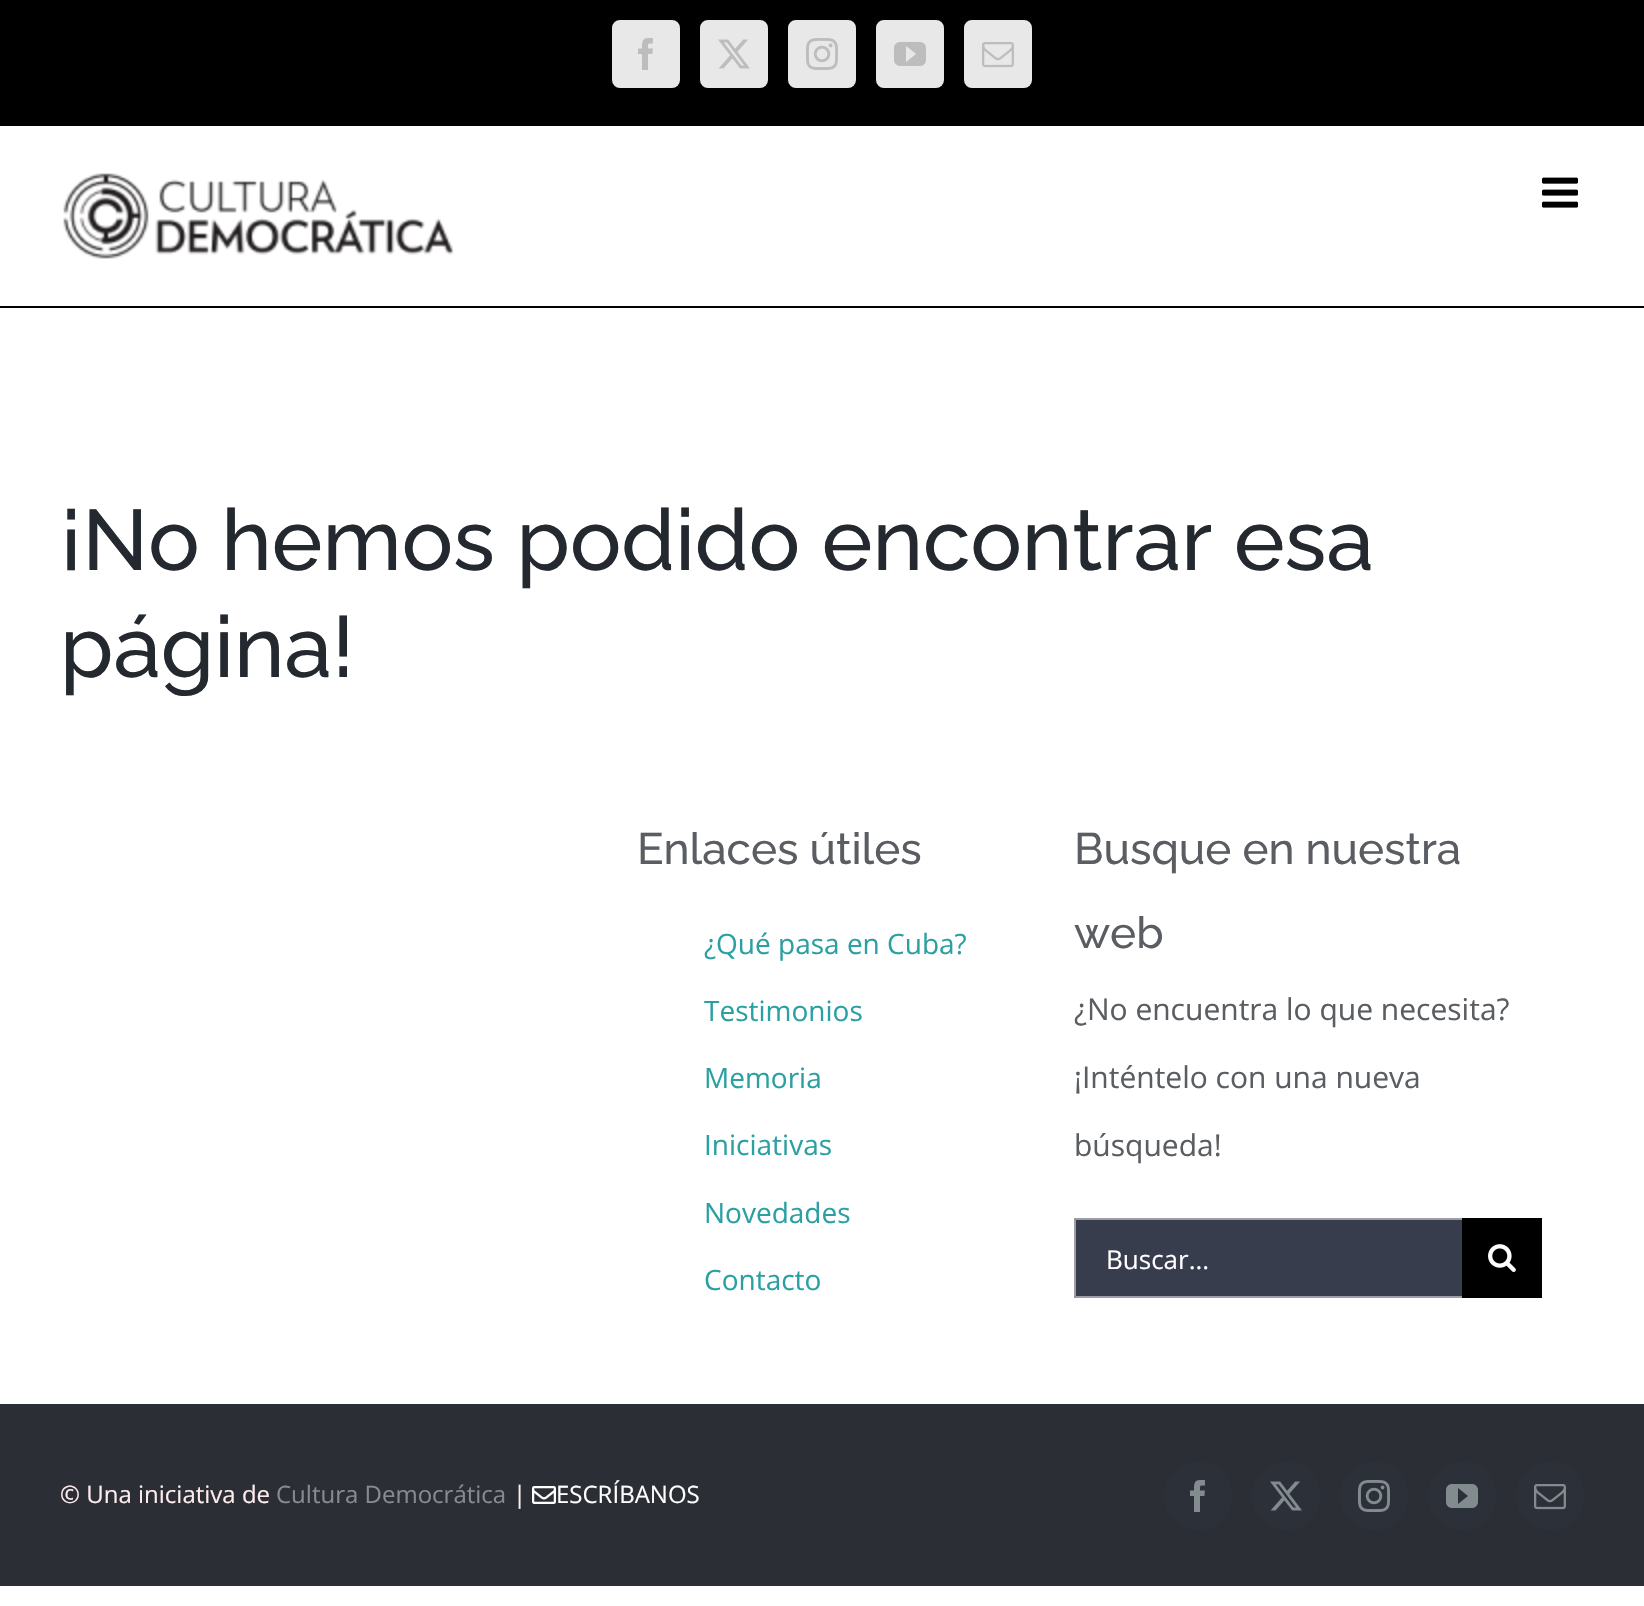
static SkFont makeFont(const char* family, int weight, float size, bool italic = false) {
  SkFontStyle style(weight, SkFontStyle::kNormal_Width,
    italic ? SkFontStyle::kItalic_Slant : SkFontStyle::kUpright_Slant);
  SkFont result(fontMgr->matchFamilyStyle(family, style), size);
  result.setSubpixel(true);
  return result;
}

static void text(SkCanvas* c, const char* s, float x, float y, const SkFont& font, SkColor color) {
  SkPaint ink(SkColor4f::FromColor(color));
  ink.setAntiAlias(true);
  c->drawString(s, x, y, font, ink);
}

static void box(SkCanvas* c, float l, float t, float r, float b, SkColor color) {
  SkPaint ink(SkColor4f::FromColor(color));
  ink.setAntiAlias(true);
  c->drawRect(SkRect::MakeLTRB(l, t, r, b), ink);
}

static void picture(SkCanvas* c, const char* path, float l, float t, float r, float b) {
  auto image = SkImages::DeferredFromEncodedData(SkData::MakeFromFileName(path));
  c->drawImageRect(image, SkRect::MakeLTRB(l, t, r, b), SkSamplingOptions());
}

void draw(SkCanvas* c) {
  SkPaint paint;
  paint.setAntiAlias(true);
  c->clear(0xffffffff);
  box(c, 0, 0, 1644, 126, 0xff000000);
  paint.setColor(0xffe8e8e8);
  c->drawRoundRect(SkRect::MakeLTRB(613, 21, 679, 87), 7, 7, paint);
  paint.setStyle(SkPaint::kStroke_Style);
  paint.setStrokeWidth(2);
  c->drawRoundRect(SkRect::MakeLTRB(613, 21, 679, 87), 7, 7, paint);
  picture(c, "img_01.png", 638, 38, 653, 70);
  paint.setStyle(SkPaint::kFill_Style);
  c->drawRoundRect(SkRect::MakeLTRB(701, 21, 767, 87), 7, 7, paint);
  paint.setStyle(SkPaint::kStroke_Style);
  c->drawRoundRect(SkRect::MakeLTRB(701, 21, 767, 87), 7, 7, paint);
  picture(c, "img_02.png", 718, 39, 750, 69);
  paint.setStyle(SkPaint::kFill_Style);
  c->drawRoundRect(SkRect::MakeLTRB(789, 21, 855, 87), 7, 7, paint);
  paint.setStyle(SkPaint::kStroke_Style);
  c->drawRoundRect(SkRect::MakeLTRB(789, 21, 855, 87), 7, 7, paint);
  picture(c, "img_03.png", 806, 38, 838, 70);
  paint.setStyle(SkPaint::kFill_Style);
  c->drawRoundRect(SkRect::MakeLTRB(877, 21, 943, 87), 7, 7, paint);
  paint.setStyle(SkPaint::kStroke_Style);
  c->drawRoundRect(SkRect::MakeLTRB(877, 21, 943, 87), 7, 7, paint);
  picture(c, "img_04.png", 894, 42, 926, 66);
  paint.setStyle(SkPaint::kFill_Style);
  c->drawRoundRect(SkRect::MakeLTRB(965, 21, 1031, 87), 7, 7, paint);
  paint.setStyle(SkPaint::kStroke_Style);
  c->drawRoundRect(SkRect::MakeLTRB(965, 21, 1031, 87), 7, 7, paint);
  picture(c, "img_05.png", 982, 42, 1014, 68);
  box(c, 0, 306, 1644, 308, 0xff000000);
  picture(c, "img_06.png", 63, 173, 454, 259);
  picture(c, "img_07.png", 1542, 177, 1578, 208);
  SkFont face1 = makeFont("Raleway", 100, 85.7f);
  text(c, "¡No hemos podido encontrar esa", 60, 570, face1, 0xff242930);
  text(c, "página!", 60, 677, face1, 0xff242930);
  SkFont face2 = makeFont("Raleway", 100, 44);
  text(c, "Enlaces útiles", 637, 864, face2, 0xff5a5d62);
  SkFont face3 = makeFont("Open Sans", 400, 28);
  text(c, "¿Qué pasa en Cuba?", 704, 954, face3, 0xff2ba0a3);
  text(c, "Testimonios", 704, 1021, face3, 0xff2ba0a3);
  text(c, "Memoria", 704, 1088, face3, 0xff2ba0a3);
  text(c, "Iniciativas", 704, 1155, face3, 0xff2ba0a3);
  text(c, "Novedades", 704, 1223, face3, 0xff2ba0a3);
  text(c, "Contacto", 704, 1290, face3, 0xff2ba0a3);
  text(c, "Busque en nuestra", 1074, 864, face2, 0xff5a5d62);
  text(c, "web", 1074, 948, face2, 0xff5a5d62);
  SkFont face4 = makeFont("Open Sans", 400, 30);
  text(c, "¿No encuentra lo que necesita?", 1074, 1020, face4, 0xff5a5d62);
  text(c, "¡Inténtelo con una nueva", 1074, 1088, face4, 0xff5a5d62);
  text(c, "búsqueda!", 1074, 1156, face4, 0xff5a5d62);
  box(c, 1074, 1218, 1462, 1298, 0xff373d4d);
  paint.setStyle(SkPaint::kFill_Style);
  paint.setColor(0xff9b9ea6);
  c->drawPath(SkPathBuilder().moveTo(1074, 1218).lineTo(1462, 1218).lineTo(1462, 1220).lineTo(1076, 1220).close().detach(), paint);
  c->drawPath(SkPathBuilder().moveTo(1462, 1298).lineTo(1074, 1298).lineTo(1076, 1296).lineTo(1462, 1296).close().detach(), paint);
  paint.setColor(0x80ffffff);
  c->drawPath(SkPathBuilder().moveTo(1074, 1298).lineTo(1074, 1218).lineTo(1076, 1220).lineTo(1076, 1296).close().detach(), paint);
  SkFont face5 = makeFont("Open Sans", 400, 26);
  text(c, "Buscar...", 1106, 1269, face5, 0xffffffff);
  box(c, 1462, 1218, 1542, 1298, 0xff000000);
  picture(c, "img_08.png", 1488, 1244, 1516, 1272);
  box(c, 0, 1404, 1644, 1586, 0xff2b2e35);
  SkFont face6 = makeFont("Open Sans", 400, 24);
  text(c, "© Una iniciativa de", 60, 1503, face6, 0xffffeded);
  text(c, "Cultura Democrática", 276, 1503, face6, 0xff868a92);
  text(c, "|", 513, 1503, face6, 0xffffeded);
  picture(c, "img_09.png", 532, 1486, 556, 1504);
  text(c, "ESCRÍBANOS", 556, 1503, face6, 0xffffffff);
  paint.setColor(0xff2c3038);
  c->drawCircle(1198, 1496, 34, paint);
  picture(c, "img_10.png", 1190, 1480, 1205, 1512);
  c->drawCircle(1286, 1496, 34, paint);
  picture(c, "img_11.png", 1270, 1481, 1302, 1511);
  c->drawCircle(1374, 1496, 34, paint);
  picture(c, "img_12.png", 1358, 1480, 1390, 1512);
  c->drawCircle(1462, 1496, 34, paint);
  picture(c, "img_13.png", 1446, 1484, 1478, 1508);
  c->drawCircle(1550, 1496, 34, paint);
  picture(c, "img_14.png", 1534, 1484, 1566, 1510);
}
